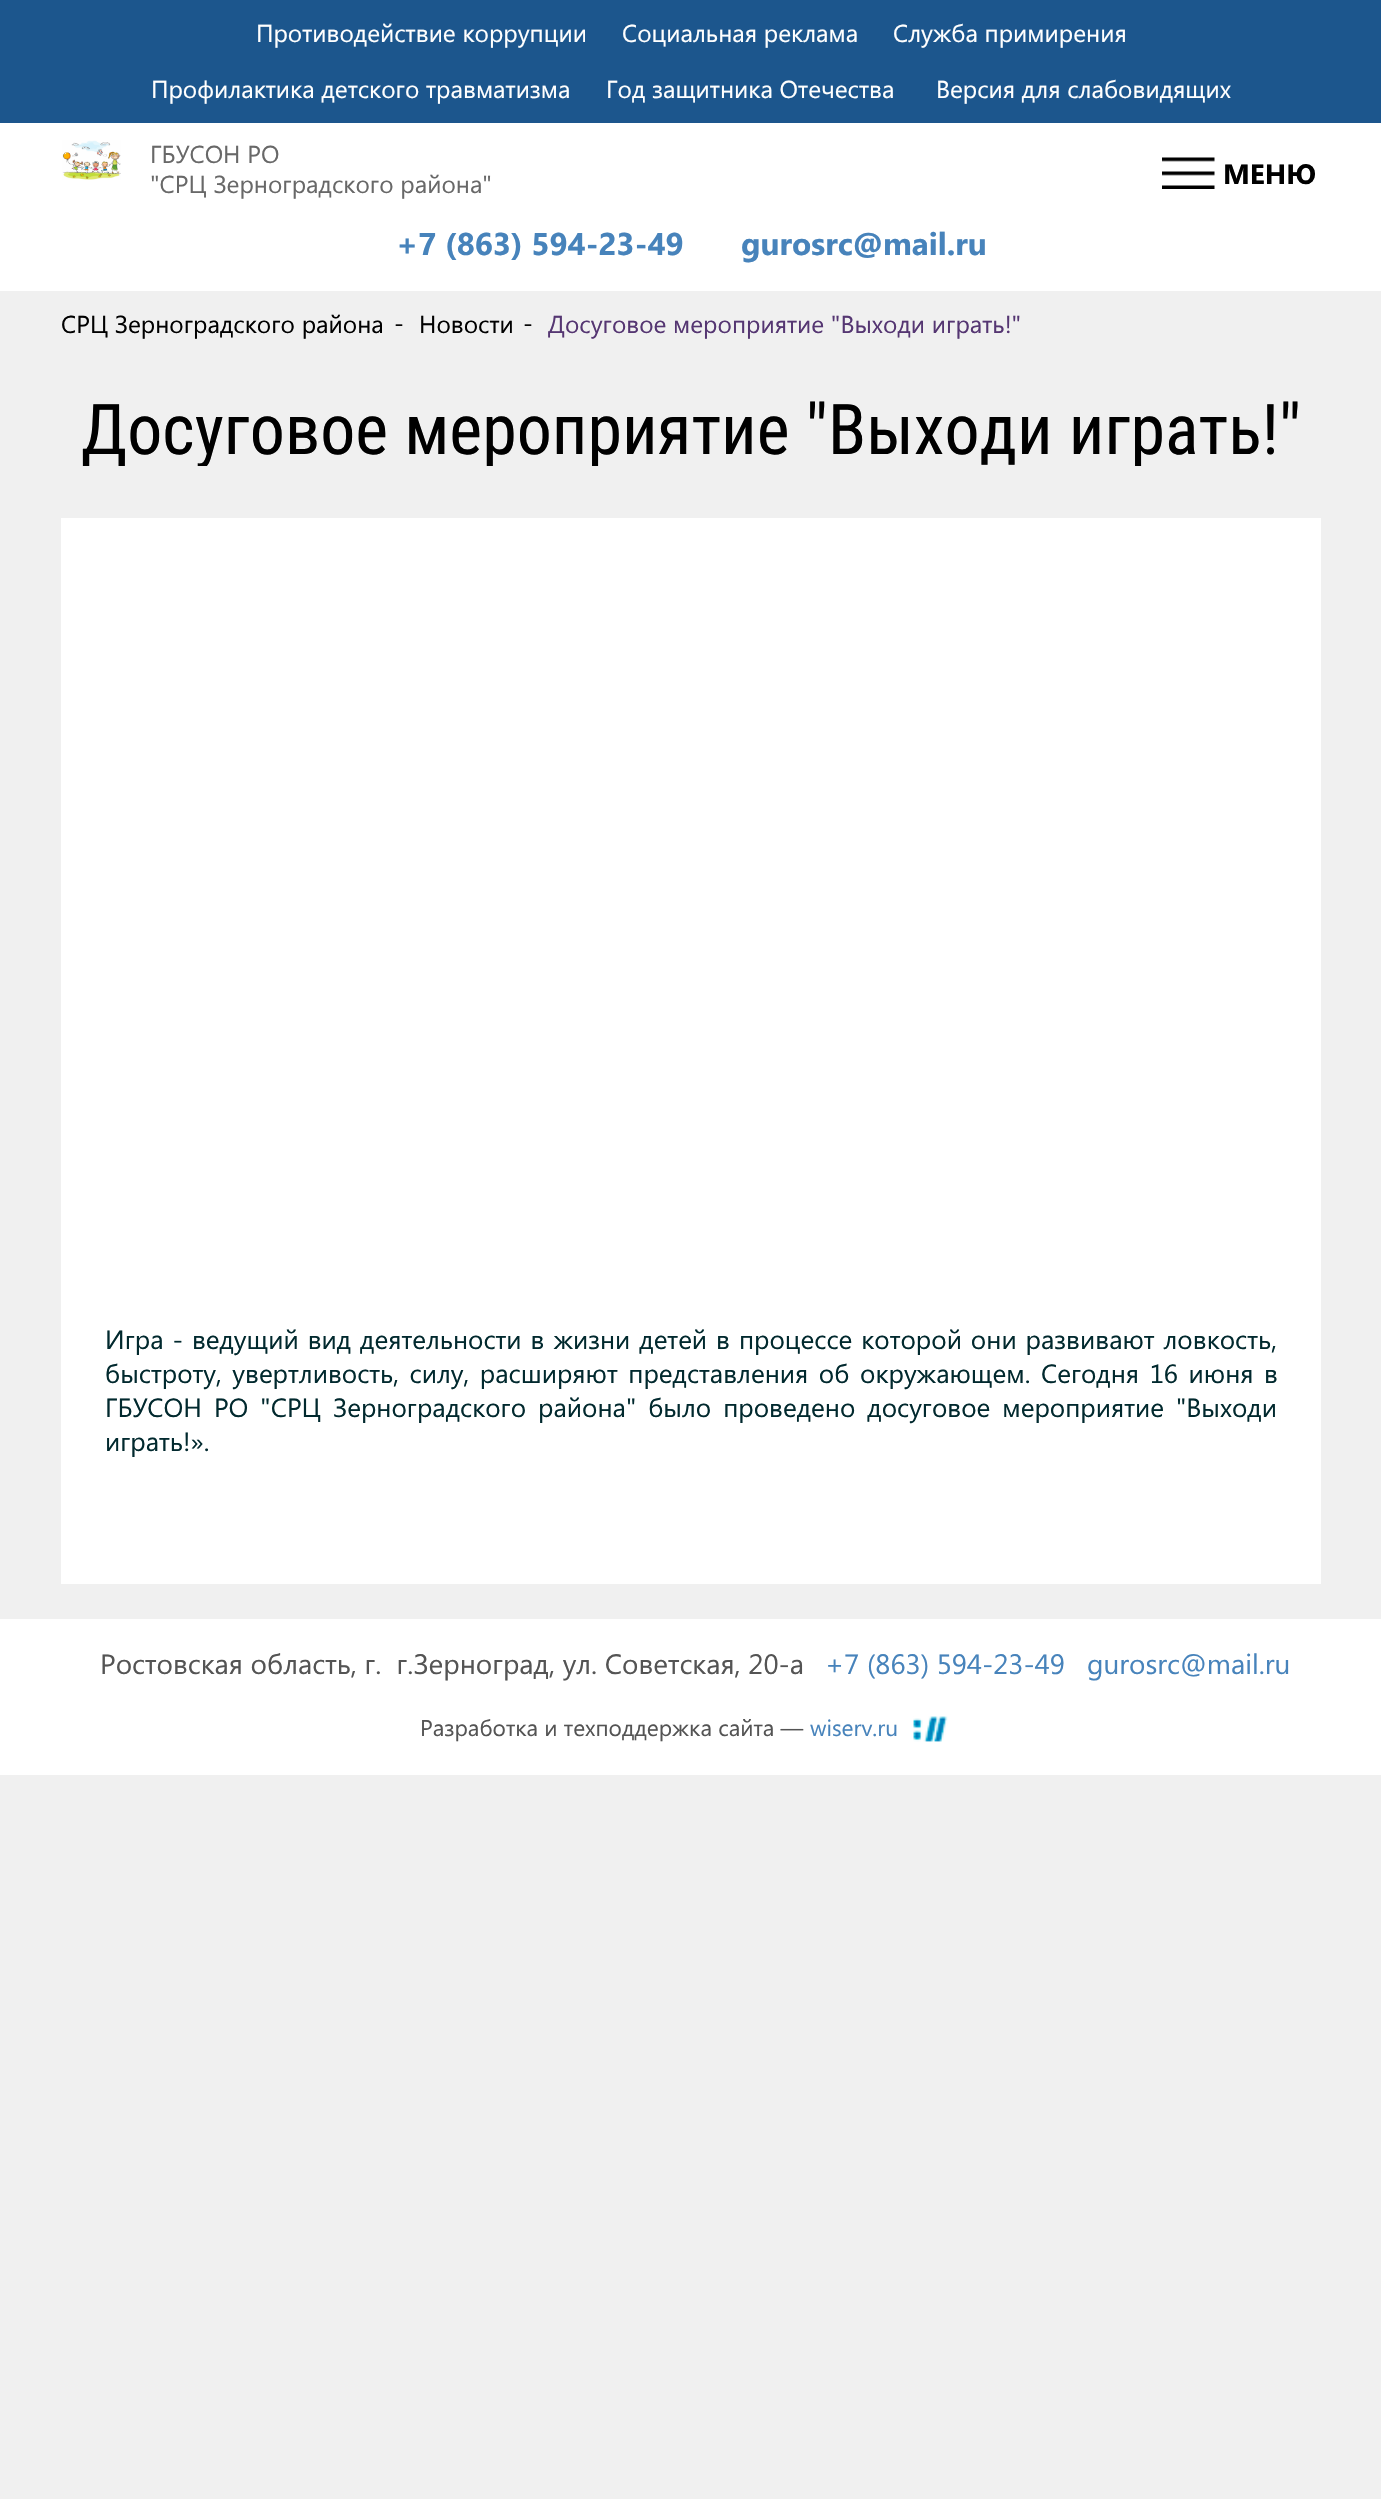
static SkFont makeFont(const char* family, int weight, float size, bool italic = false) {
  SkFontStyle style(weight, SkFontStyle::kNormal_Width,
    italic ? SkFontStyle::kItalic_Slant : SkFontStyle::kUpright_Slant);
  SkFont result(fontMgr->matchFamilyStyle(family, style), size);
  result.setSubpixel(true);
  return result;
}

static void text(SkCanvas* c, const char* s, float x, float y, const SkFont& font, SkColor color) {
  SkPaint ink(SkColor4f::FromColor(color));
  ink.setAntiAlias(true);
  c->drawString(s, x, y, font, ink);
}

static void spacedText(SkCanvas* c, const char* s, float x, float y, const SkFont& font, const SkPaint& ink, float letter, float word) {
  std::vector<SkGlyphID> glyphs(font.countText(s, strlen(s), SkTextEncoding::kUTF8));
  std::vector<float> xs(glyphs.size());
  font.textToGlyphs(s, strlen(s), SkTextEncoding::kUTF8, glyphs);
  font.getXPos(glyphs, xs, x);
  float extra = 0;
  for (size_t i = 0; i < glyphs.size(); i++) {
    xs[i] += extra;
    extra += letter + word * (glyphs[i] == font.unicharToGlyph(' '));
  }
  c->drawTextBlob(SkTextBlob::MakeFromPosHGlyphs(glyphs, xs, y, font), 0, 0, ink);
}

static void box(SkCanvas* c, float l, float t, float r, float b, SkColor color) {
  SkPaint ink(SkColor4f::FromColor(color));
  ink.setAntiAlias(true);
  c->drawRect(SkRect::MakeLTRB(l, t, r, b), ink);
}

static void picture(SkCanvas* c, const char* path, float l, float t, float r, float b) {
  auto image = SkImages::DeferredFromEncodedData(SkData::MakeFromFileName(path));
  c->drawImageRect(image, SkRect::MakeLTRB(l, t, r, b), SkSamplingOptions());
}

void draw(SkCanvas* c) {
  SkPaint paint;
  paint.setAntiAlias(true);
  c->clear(0xfff0f0f0);
  box(c, 0, 0, 1381, 123, 0xff1c568d);
  SkFont face1 = makeFont("Segoe UI", 400, 24.5f);
  text(c, "Противодействие коррупции", 256, 42, face1, 0xffffffff);
  text(c, "Социальная реклама", 622, 42, face1, 0xffffffff);
  text(c, "Служба примирения", 893, 42, face1, 0xffffffff);
  text(c, "Профилактика детского травматизма", 151, 98, face1, 0xffffffff);
  text(c, "Год защитника Отечества", 606, 98, face1, 0xffffffff);
  text(c, "Версия для слабовидящих", 936, 98, face1, 0xffffffff);
  box(c, 0, 123, 1381, 291, 0xffffffff);
  picture(c, "img_01.png", 62, 140, 121, 180);
  text(c, "ГБУСОН РО", 150, 163, face1, 0xff686868);
  text(c, "\"СРЦ Зерноградского района\"", 150, 193, face1, 0xff686868);
  picture(c, "img_02.png", 1162, 157, 1215, 189);
  SkFont face2 = makeFont("Segoe UI", 700, 28);
  text(c, "МЕНЮ", 1223, 184, face2, 0xff000000);
  SkFont face3 = makeFont("Segoe UI", 700, 31.5f);
  text(c, "+7 (863) 594-23-49", 396, 255, face3, 0xff4783bb);
  text(c, "gurosrc@mail.ru", 741, 255, face3, 0xff4783bb);
  text(c, "СРЦ Зерноградского района", 61, 333, face1, 0xff000000);
  text(c, "-", 394, 332, face1, 0xff000000);
  text(c, "Новости", 419, 333, face1, 0xff000000);
  text(c, "-", 523, 332, face1, 0xff000000);
  text(c, "Досуговое мероприятие \"Выходи играть!\"", 548, 333, face1, 0xff553672);
  c->save();
  c->clipRect(SkRect::MakeLTRB(61, 396, 1321, 466));
  SkFont face4 = makeFont("Roboto Condensed", 400, 70);
  text(c, "Досуговое мероприятие \"Выходи играть!\"", 81, 454, face4, 0xff000000);
  c->restore();
  box(c, 61, 518, 1321, 1584, 0xffffffff);
  SkFont face5 = makeFont("Segoe UI", 400, 26.25f);
  paint.setColor(0xff01292e);
  spacedText(c, "Игра - ведущий вид деятельности в жизни детей в процессе которой они развивают ловкость,", 105, 1349, face5, paint, 0, 1.75f);
  spacedText(c, "быстроту, увертливость, силу, расширяют представления об окружающем. Сегодня 16 июня в", 105, 1383, face5, paint, 0, 3.4f);
  spacedText(c, "ГБУСОН РО \"СРЦ Зерноградского района\" было проведено досуговое мероприятие \"Выходи", 105, 1417, face5, paint, 0, 4.75f);
  text(c, "играть!».", 105, 1451, face5, 0xff01292e);
  box(c, 0, 1619, 1381, 1775, 0xffffffff);
  SkFont face6 = makeFont("Segoe UI", 400, 28);
  text(c, "Ростовская область, г.  г.Зерноград, ул. Советская, 20-а", 100, 1674, face6, 0xff545454);
  text(c, "+7 (863) 594-23-49", 825, 1674, face6, 0xff4783bb);
  text(c, "gurosrc@mail.ru", 1087, 1674, face6, 0xff4783bb);
  SkFont face7 = makeFont("Segoe UI", 400, 22.75f);
  text(c, "Разработка и техподдержка сайта —", 420, 1736, face7, 0xff545454);
  text(c, "wiserv.ru", 810, 1736, face7, 0xff4783bb);
  picture(c, "img_03.png", 913, 1716, 948, 1742);
}
